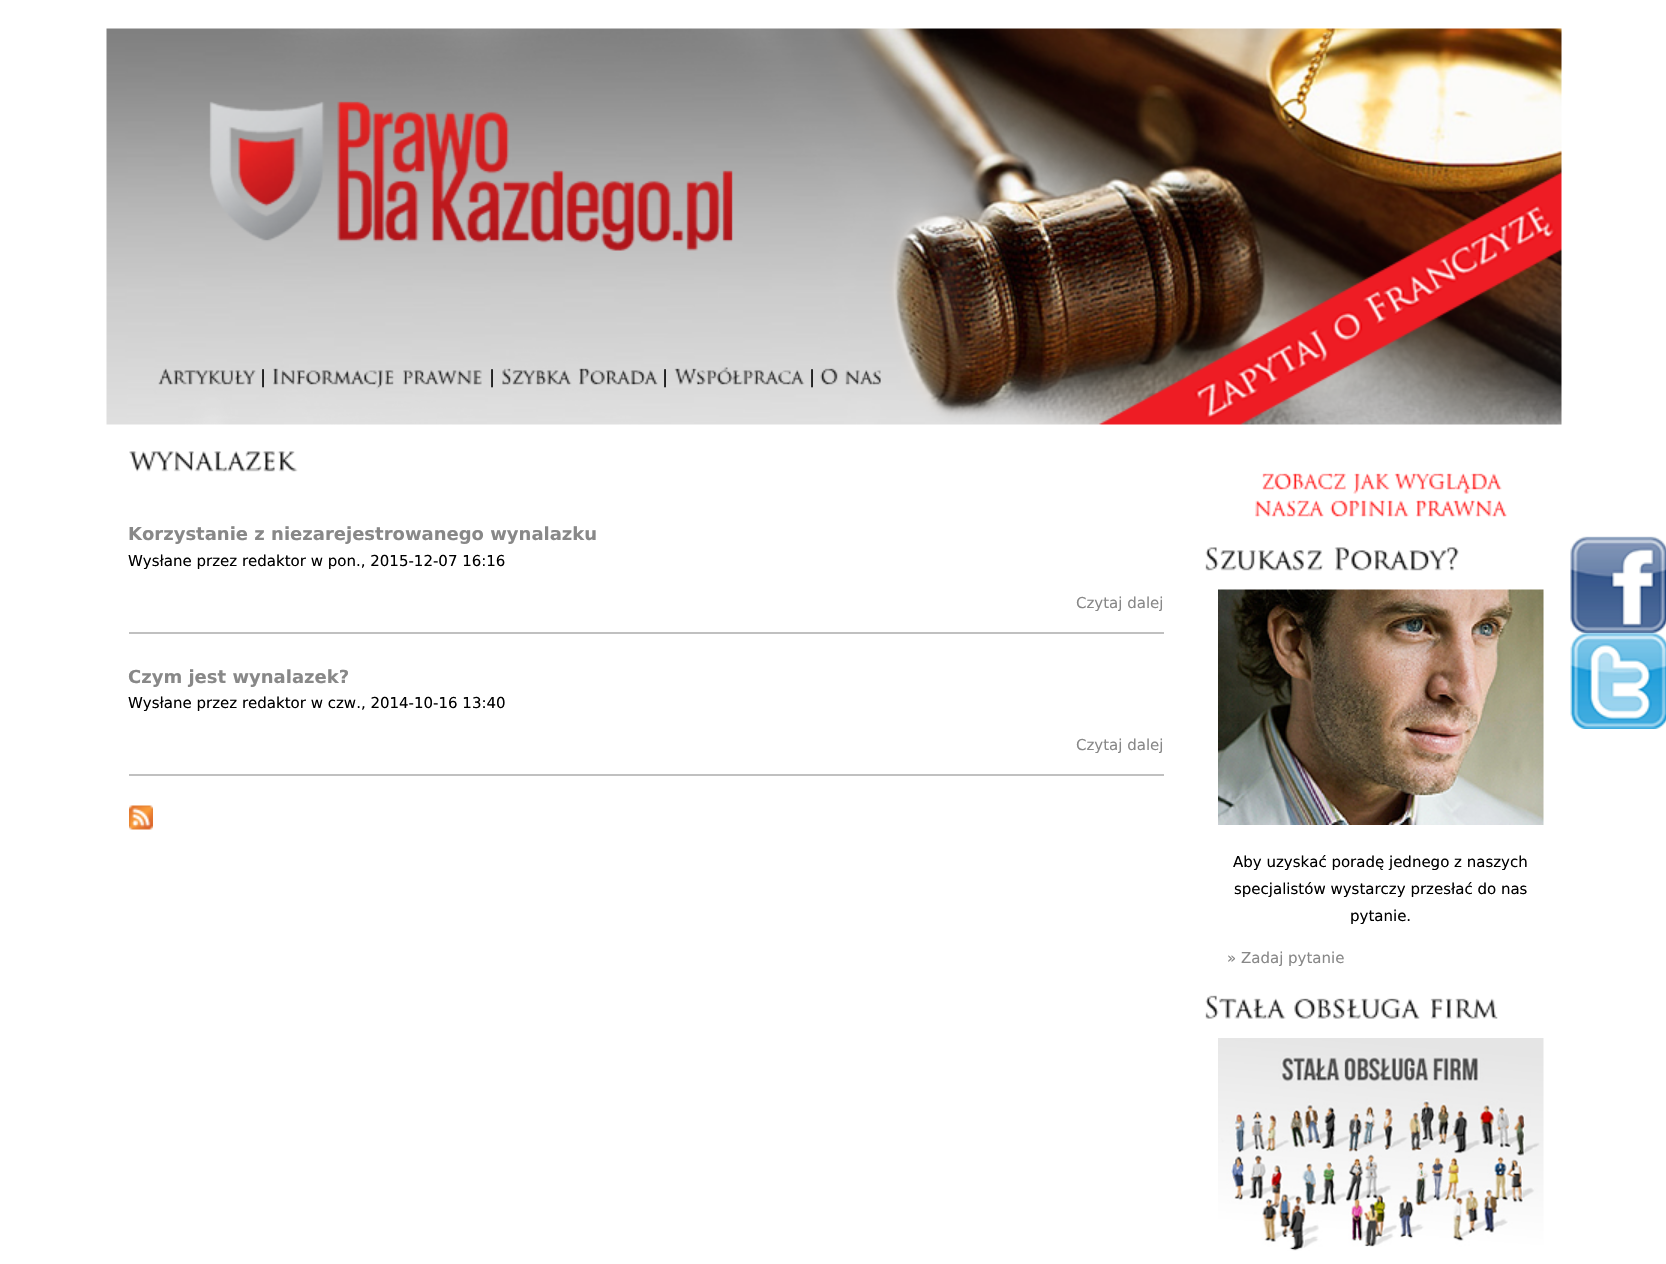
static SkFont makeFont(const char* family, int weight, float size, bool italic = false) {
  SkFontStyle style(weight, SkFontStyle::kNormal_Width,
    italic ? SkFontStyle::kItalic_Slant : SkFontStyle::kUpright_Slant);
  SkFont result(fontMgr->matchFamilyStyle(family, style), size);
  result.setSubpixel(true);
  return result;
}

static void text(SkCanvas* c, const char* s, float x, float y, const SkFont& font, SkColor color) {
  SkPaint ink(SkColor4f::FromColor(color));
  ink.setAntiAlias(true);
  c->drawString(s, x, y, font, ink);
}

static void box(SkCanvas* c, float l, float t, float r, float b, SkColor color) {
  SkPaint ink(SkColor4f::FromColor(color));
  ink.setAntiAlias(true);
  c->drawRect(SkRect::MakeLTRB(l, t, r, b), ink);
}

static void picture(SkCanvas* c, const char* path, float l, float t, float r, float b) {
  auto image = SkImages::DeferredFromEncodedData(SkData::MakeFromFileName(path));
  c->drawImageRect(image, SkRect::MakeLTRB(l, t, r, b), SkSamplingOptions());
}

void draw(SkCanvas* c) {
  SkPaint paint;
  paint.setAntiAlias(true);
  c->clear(0xffffffff);
  picture(c, "img_01.png", 106, 28, 1562, 425);
  picture(c, "img_02.png", 158, 368, 256, 385);
  SkFont face1 = makeFont("DejaVu Sans", 400, 18);
  text(c, "|", 260, 383, face1, 0xff000000);
  picture(c, "img_03.png", 273, 368, 394, 389);
  picture(c, "img_04.png", 403, 370, 482, 385);
  text(c, "|", 489, 383, face1, 0xff000000);
  picture(c, "img_05.png", 502, 368, 572, 385);
  picture(c, "img_06.png", 579, 368, 658, 385);
  text(c, "|", 662, 383, face1, 0xff000000);
  picture(c, "img_07.png", 674, 367, 805, 385);
  text(c, "|", 809, 383, face1, 0xff000000);
  picture(c, "img_08.png", 820, 368, 838, 385);
  picture(c, "img_09.png", 845, 370, 881, 385);
  picture(c, "img_10.png", 129, 451, 298, 472);
  box(c, 129, 632, 1164, 634, 0xffc0c0c0);
  SkFont face2 = makeFont("DejaVu Sans", 700, 18);
  text(c, "Korzystanie z niezarejestrowanego wynalazku", 128, 540, face2, 0xff888888);
  SkFont face3 = makeFont("DejaVu Sans", 400, 15);
  text(c, "Wysłane przez redaktor w pon., 2015-12-07 16:16", 128, 566, face3, 0xff000000);
  text(c, "Czytaj dalej", 1076, 608, face3, 0xff888888);
  box(c, 129, 774, 1164, 776, 0xffc0c0c0);
  text(c, "Czym jest wynalazek?", 128, 683, face2, 0xff888888);
  text(c, "Wysłane przez redaktor w czw., 2014-10-16 13:40", 128, 708, face3, 0xff000000);
  text(c, "Czytaj dalej", 1076, 750, face3, 0xff888888);
  picture(c, "img_11.png", 129, 805, 153, 830);
  picture(c, "img_12.png", 1262, 473, 1346, 490);
  picture(c, "img_13.png", 1353, 473, 1390, 494);
  picture(c, "img_14.png", 1394, 473, 1502, 494);
  picture(c, "img_15.png", 1255, 500, 1324, 517);
  picture(c, "img_16.png", 1330, 500, 1409, 517);
  picture(c, "img_17.png", 1416, 500, 1507, 517);
  picture(c, "img_18.png", 1205, 547, 1323, 571);
  picture(c, "img_19.png", 1334, 547, 1459, 571);
  picture(c, "img_20.png", 1218, 589, 1544, 825);
  text(c, "Aby uzyskać poradę jednego z naszych", 1233, 867, face3, 0xff000000);
  text(c, "specjalistów wystarczy przesłać do nas", 1234, 894, face3, 0xff000000);
  text(c, "pytanie.", 1350, 921, face3, 0xff000000);
  text(c, "» Zadaj pytanie", 1227, 963, face3, 0xff888888);
  picture(c, "img_21.png", 1205, 995, 1286, 1019);
  picture(c, "img_22.png", 1294, 998, 1420, 1019);
  picture(c, "img_23.png", 1430, 998, 1498, 1019);
  picture(c, "img_24.png", 1218, 1038, 1544, 1251);
  picture(c, "img_25.png", 1570, 536, 1666, 633);
  picture(c, "img_26.png", 1570, 632, 1666, 729);
}
